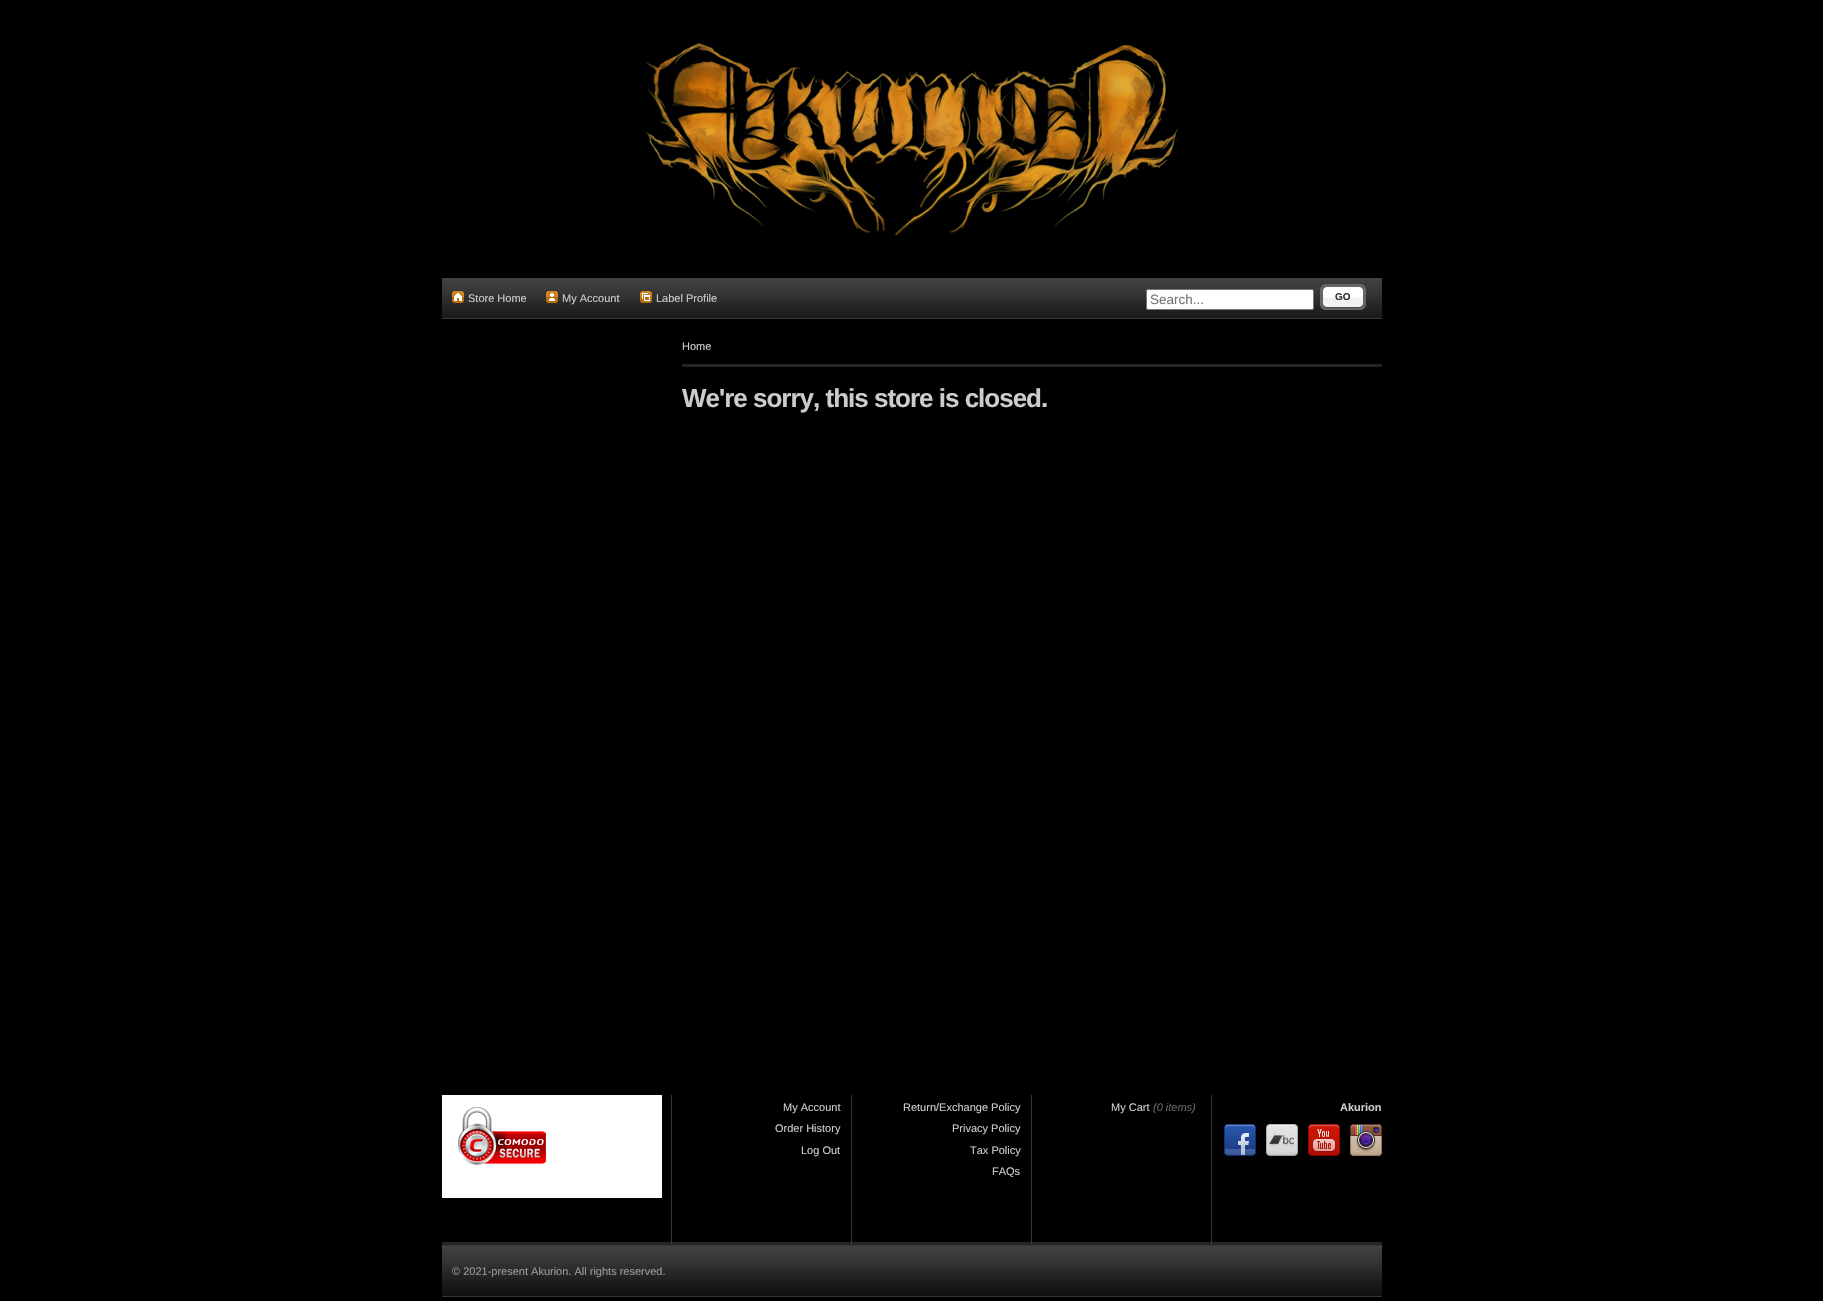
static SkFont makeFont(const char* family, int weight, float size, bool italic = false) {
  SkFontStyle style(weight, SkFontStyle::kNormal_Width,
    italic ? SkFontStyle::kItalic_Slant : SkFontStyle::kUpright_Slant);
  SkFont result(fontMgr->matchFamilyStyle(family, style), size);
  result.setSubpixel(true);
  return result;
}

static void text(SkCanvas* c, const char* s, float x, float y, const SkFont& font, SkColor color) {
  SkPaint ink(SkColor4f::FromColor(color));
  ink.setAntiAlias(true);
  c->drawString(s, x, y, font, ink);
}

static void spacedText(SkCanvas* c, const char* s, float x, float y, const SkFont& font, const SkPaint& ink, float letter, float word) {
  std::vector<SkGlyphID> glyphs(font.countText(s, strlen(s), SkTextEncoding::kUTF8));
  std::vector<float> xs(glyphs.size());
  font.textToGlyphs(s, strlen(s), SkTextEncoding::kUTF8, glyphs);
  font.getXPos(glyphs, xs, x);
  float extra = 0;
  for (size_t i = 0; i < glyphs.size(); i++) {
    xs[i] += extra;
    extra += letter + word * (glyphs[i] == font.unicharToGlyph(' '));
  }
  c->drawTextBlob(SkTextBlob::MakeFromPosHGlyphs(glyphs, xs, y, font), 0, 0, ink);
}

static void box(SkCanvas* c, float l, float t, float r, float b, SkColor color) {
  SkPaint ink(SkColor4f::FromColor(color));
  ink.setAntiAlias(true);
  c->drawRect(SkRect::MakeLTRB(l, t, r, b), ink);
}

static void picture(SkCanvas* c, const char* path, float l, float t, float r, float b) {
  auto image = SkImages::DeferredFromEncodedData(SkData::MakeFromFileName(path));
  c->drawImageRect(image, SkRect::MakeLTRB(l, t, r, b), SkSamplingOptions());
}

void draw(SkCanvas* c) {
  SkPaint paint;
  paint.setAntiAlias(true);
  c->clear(0xff000000);
  picture(c, "img_01.png", 645, 42, 1179, 235);
  picture(c, "img_02.png", 442, 278, 1382, 318);
  box(c, 442, 318, 1382, 319, 0xff363636);
  box(c, 452, 291, 464, 303, 0xffd78113);
  picture(c, "img_03.png", 452, 291, 464, 303);
  SkFont face1 = makeFont("Liberation Sans", 400, 11);
  text(c, "Store Home", 468, 302, face1, 0xffcccccc);
  box(c, 546, 291, 558, 303, 0xffd78113);
  picture(c, "img_04.png", 546, 291, 558, 303);
  text(c, "My Account", 562, 302, face1, 0xffcccccc);
  box(c, 640, 291, 652, 303, 0xffd78113);
  picture(c, "img_05.png", 640, 291, 652, 303);
  text(c, "Label Profile", 656, 302, face1, 0xffcccccc);
  paint.setColor(0xffffffff);
  c->drawRoundRect(SkRect::MakeLTRB(1146.5f, 289.5f, 1313.5f, 309.5f), 1.5f, 1.5f, paint);
  paint.setStyle(SkPaint::kStroke_Style);
  paint.setStrokeWidth(1);
  paint.setColor(0xff767676);
  c->drawRoundRect(SkRect::MakeLTRB(1146.5f, 289.5f, 1313.5f, 309.5f), 1.5f, 1.5f, paint);
  SkFont face2 = makeFont("Liberation Sans", 400, 13.5f);
  text(c, "Search...", 1150, 304, face2, 0xff757575);
  picture(c, "img_06.png", 1320, 284, 1327, 310);
  picture(c, "img_07.png", 1327, 284, 1359, 310);
  SkFont face3 = makeFont("Liberation Sans", 700, 10);
  text(c, "GO", 1335, 300, face3, 0xff333333);
  picture(c, "img_08.png", 1359, 284, 1366, 310);
  box(c, 682, 364, 1382, 367, 0xff252525);
  text(c, "Home", 682, 350, face1, 0xffcccccc);
  SkFont face4 = makeFont("Liberation Sans", 700, 26);
  paint.setStyle(SkPaint::kFill_Style);
  paint.setColor(0xffcccccc);
  spacedText(c, "We're sorry, this store is closed.", 682, 407, face4, paint, -1, 0);
  box(c, 442, 1242, 1382, 1245, 0xff252525);
  box(c, 671, 1095, 672, 1245, 0xff363636);
  box(c, 442, 1095, 662, 1198, 0xffffffff);
  picture(c, "img_09.png", 458, 1107, 546, 1165);
  box(c, 851, 1095, 852, 1245, 0xff363636);
  text(c, "My Account", 783, 1111, face1, 0xffcccccc);
  text(c, "Order History", 775, 1132, face1, 0xffcccccc);
  text(c, "Log Out", 801, 1154, face1, 0xffcccccc);
  box(c, 1031, 1095, 1032, 1245, 0xff363636);
  text(c, "Return/Exchange Policy", 903, 1111, face1, 0xffcccccc);
  text(c, "Privacy Policy", 952, 1132, face1, 0xffcccccc);
  text(c, "Tax Policy", 970, 1154, face1, 0xffcccccc);
  text(c, "FAQs", 992, 1175, face1, 0xffcccccc);
  box(c, 1211, 1095, 1212, 1245, 0xff363636);
  text(c, "My Cart", 1111, 1111, face1, 0xffcccccc);
  SkFont face5 = makeFont("Liberation Sans", 400, 11, true);
  text(c, "(0 items)", 1153, 1111, face5, 0xff666666);
  SkFont face6 = makeFont("Liberation Sans", 700, 11);
  text(c, "Akurion", 1340, 1111, face6, 0xffcccccc);
  picture(c, "img_10.png", 1224, 1124, 1256, 1156);
  picture(c, "img_11.png", 1266, 1124, 1298, 1156);
  picture(c, "img_12.png", 1308, 1124, 1340, 1156);
  picture(c, "img_13.png", 1350, 1124, 1382, 1156);
  picture(c, "img_14.png", 442, 1246, 1382, 1297);
  box(c, 442, 1245, 1382, 1246, 0xff363636);
  text(c, "© 2021-present Akurion. All rights reserved.", 452, 1275, face1, 0xff999999);
}
